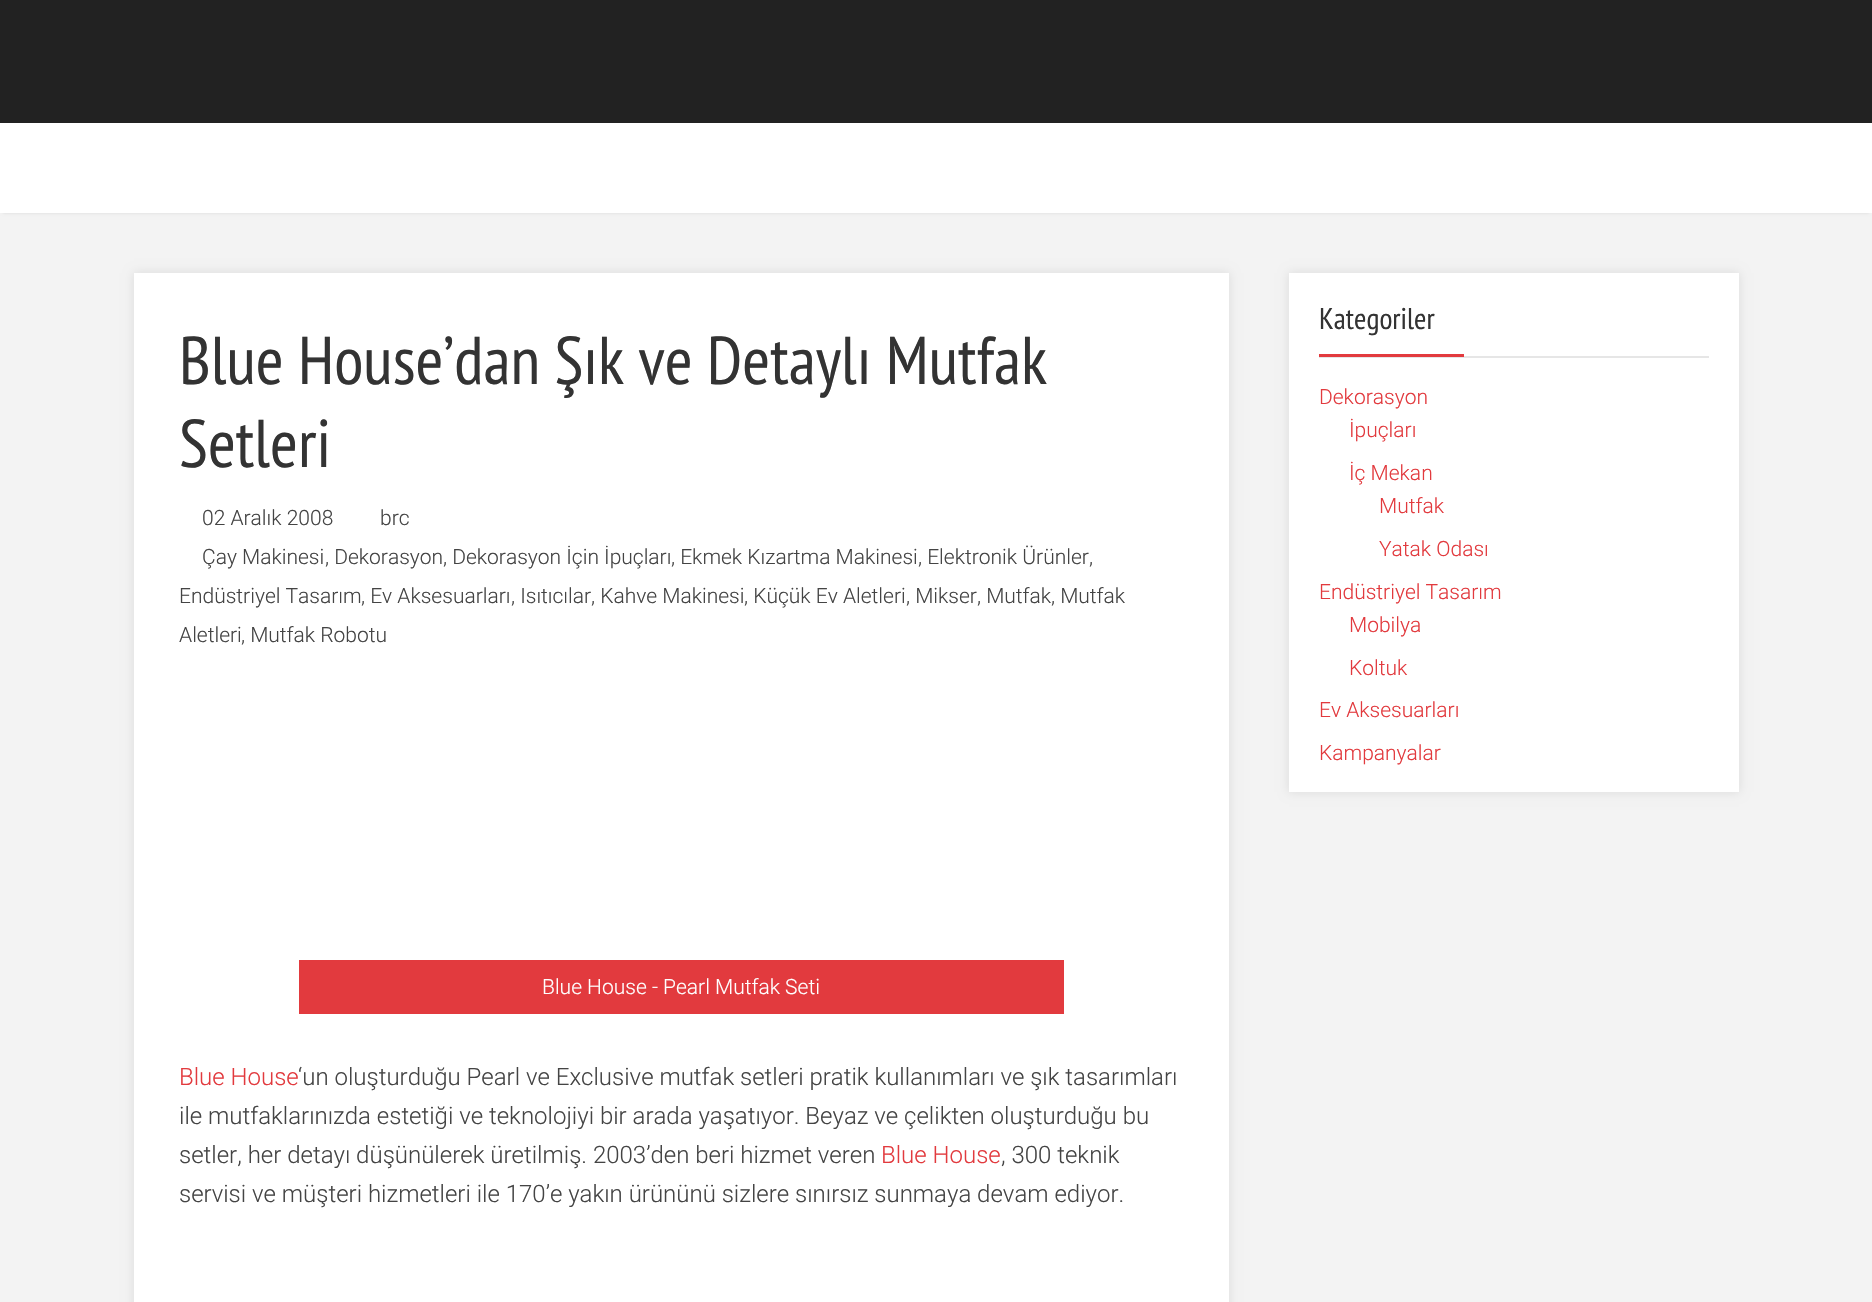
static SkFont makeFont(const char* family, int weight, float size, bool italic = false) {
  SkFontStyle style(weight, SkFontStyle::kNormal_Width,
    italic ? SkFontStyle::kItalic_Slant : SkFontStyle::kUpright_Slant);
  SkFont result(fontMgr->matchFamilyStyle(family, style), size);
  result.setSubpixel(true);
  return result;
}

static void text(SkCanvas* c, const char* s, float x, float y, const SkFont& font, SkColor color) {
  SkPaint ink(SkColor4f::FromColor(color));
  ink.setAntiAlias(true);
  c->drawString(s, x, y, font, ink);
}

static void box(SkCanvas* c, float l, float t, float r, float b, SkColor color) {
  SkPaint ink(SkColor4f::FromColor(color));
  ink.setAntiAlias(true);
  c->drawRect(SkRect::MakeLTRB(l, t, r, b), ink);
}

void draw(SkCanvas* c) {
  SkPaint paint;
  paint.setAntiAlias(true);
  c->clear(0xfff3f3f3);
  paint.setColor(0x1a000000);
  paint.setMaskFilter(SkMaskFilter::MakeBlur(kNormal_SkBlurStyle, 1.5f));
  c->drawRect(SkRect::MakeLTRB(3, 6, 1869, 213), paint);
  paint.setMaskFilter(nullptr);
  box(c, 0, 0, 1872, 123, 0xff222222);
  box(c, 0, 123, 1872, 213, 0xffffffff);
  paint.setMaskFilter(SkMaskFilter::MakeBlur(kNormal_SkBlurStyle, 5));
  c->drawRect(SkRect::MakeLTRB(134, 273, 1229, 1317), paint);
  paint.setMaskFilter(nullptr);
  box(c, 134, 273, 1229, 1302, 0xffffffff);
  SkFont face1 = makeFont("PT Sans Narrow", 400, 67.5f);
  text(c, "Blue House’dan Şık ve Detaylı Mutfak", 179, 384, face1, 0xff333333);
  text(c, "Setleri", 179, 467, face1, 0xff333333);
  SkFont face2 = makeFont("Roboto", 300, 21);
  text(c, "02 Aralık 2008", 202, 525, face2, 0xff444444);
  text(c, "brc", 380, 525, face2, 0xff444444);
  text(c, "Çay Makinesi", 202, 564, face2, 0xff444444);
  text(c, ", Dekorasyon", 325, 564, face2, 0xff444444);
  text(c, ", Dekorasyon İçin İpuçları", 443, 564, face2, 0xff444444);
  text(c, ", Ekmek Kızartma Makinesi", 671, 564, face2, 0xff444444);
  text(c, ", Elektronik Ürünler", 918, 564, face2, 0xff444444);
  text(c, ",", 1089, 564, face2, 0xff444444);
  text(c, "Endüstriyel Tasarım", 179, 603, face2, 0xff444444);
  text(c, ", Ev Aksesuarları", 361, 603, face2, 0xff444444);
  text(c, ", Isıtıcılar", 511, 603, face2, 0xff444444);
  text(c, ", Kahve Makinesi", 591, 603, face2, 0xff444444);
  text(c, ", Küçük Ev Aletleri", 744, 603, face2, 0xff444444);
  text(c, ", Mikser", 906, 603, face2, 0xff444444);
  text(c, ", Mutfak", 977, 603, face2, 0xff444444);
  text(c, ", Mutfak", 1051, 603, face2, 0xff444444);
  text(c, "Aletleri", 179, 642, face2, 0xff444444);
  text(c, ", Mutfak Robotu", 241, 642, face2, 0xff444444);
  box(c, 299, 960, 1064, 1014, 0xffe23a3e);
  text(c, "Blue House - Pearl Mutfak Seti", 542, 994, face2, 0xffffffff);
  SkFont face3 = makeFont("Roboto", 300, 24);
  text(c, "Blue House", 179, 1085, face3, 0xffe23a3e);
  text(c, "‘un oluşturduğu Pearl ve Exclusive mutfak setleri pratik kullanımları ve şık tasarımları", 298, 1085, face3, 0xff444444);
  text(c, "ile mutfaklarınızda estetiği ve teknolojiyi bir arada yaşatıyor. Beyaz ve çelikten oluşturduğu bu", 179, 1124, face3, 0xff444444);
  text(c, "setler, her detayı düşünülerek üretilmiş. 2003’den beri hizmet veren", 179, 1163, face3, 0xff444444);
  text(c, "Blue House", 881, 1163, face3, 0xffe23a3e);
  text(c, ", 300 teknik", 1001, 1163, face3, 0xff444444);
  text(c, "servisi ve müşteri hizmetleri ile 170’e yakın ürününü sizlere sınırsız sunmaya devam ediyor.", 179, 1202, face3, 0xff444444);
  paint.setMaskFilter(SkMaskFilter::MakeBlur(kNormal_SkBlurStyle, 5));
  c->drawRect(SkRect::MakeLTRB(1289, 273, 1739, 792), paint);
  paint.setMaskFilter(nullptr);
  box(c, 1289, 273, 1739, 792, 0xffffffff);
  box(c, 1319, 356, 1709, 358, 0xffe6e6e6);
  box(c, 1319, 354, 1464, 357, 0xffe23a3e);
  SkFont face4 = makeFont("PT Sans Narrow", 400, 30);
  text(c, "Kategoriler", 1319, 329, face4, 0xff333333);
  text(c, "Dekorasyon", 1319, 404, face2, 0xffe23a3e);
  text(c, "İpuçları", 1349, 437, face2, 0xffe23a3e);
  text(c, "İç Mekan", 1349, 480, face2, 0xffe23a3e);
  text(c, "Mutfak", 1379, 513, face2, 0xffe23a3e);
  text(c, "Yatak Odası", 1379, 556, face2, 0xffe23a3e);
  text(c, "Endüstriyel Tasarım", 1319, 599, face2, 0xffe23a3e);
  text(c, "Mobilya", 1349, 632, face2, 0xffe23a3e);
  text(c, "Koltuk", 1349, 675, face2, 0xffe23a3e);
  text(c, "Ev Aksesuarları", 1319, 717, face2, 0xffe23a3e);
  text(c, "Kampanyalar", 1319, 760, face2, 0xffe23a3e);
}
